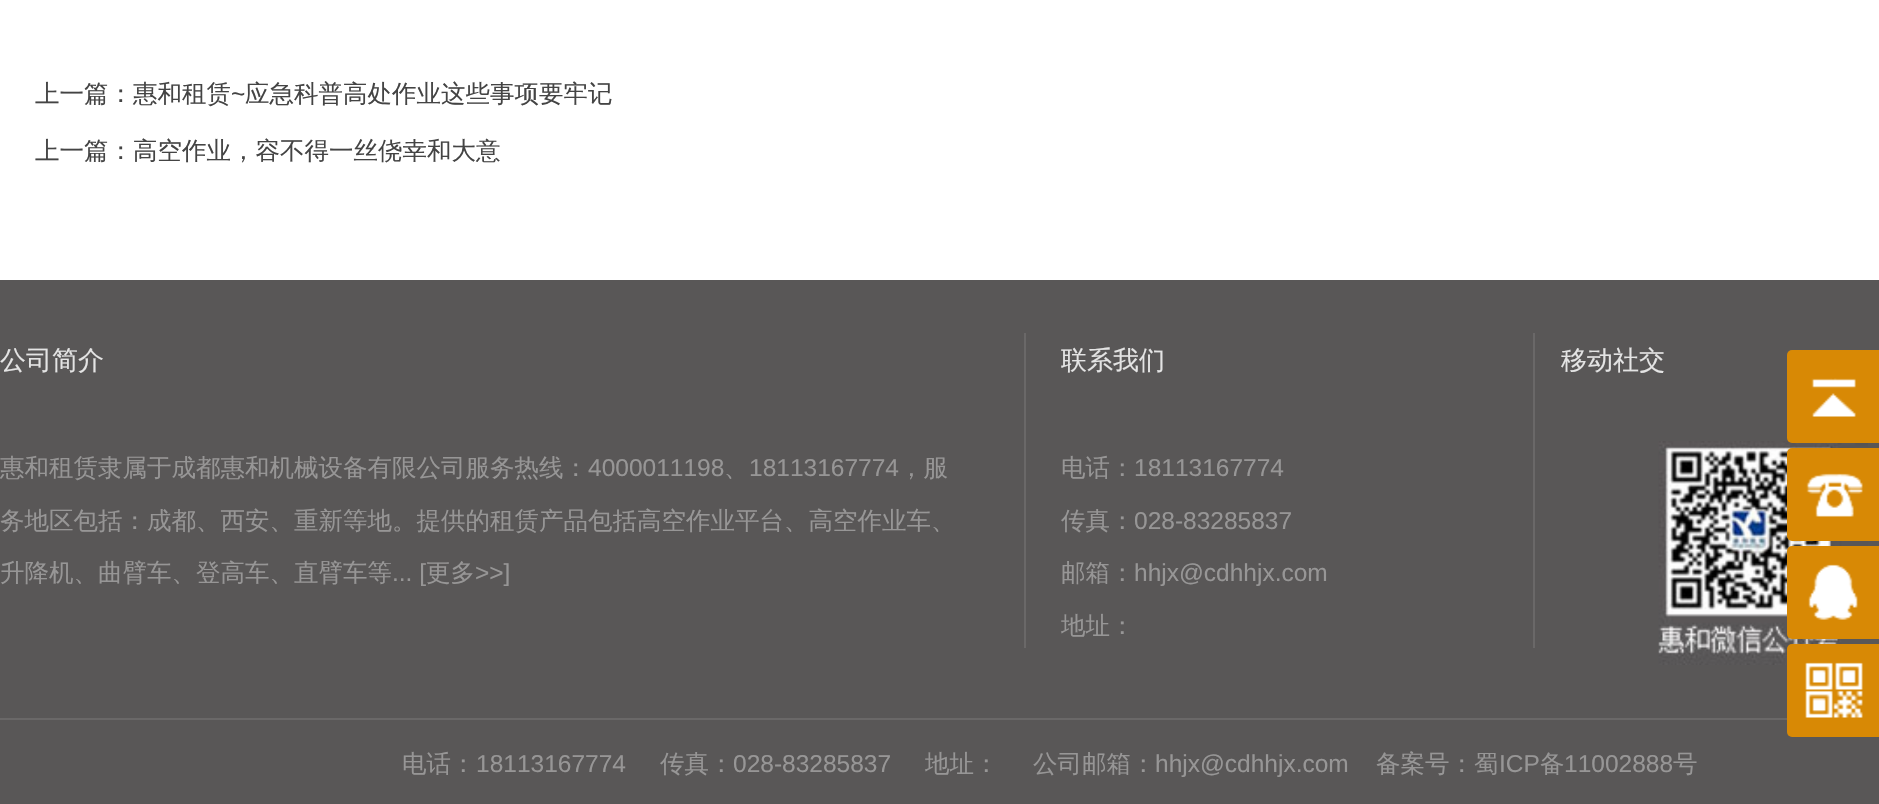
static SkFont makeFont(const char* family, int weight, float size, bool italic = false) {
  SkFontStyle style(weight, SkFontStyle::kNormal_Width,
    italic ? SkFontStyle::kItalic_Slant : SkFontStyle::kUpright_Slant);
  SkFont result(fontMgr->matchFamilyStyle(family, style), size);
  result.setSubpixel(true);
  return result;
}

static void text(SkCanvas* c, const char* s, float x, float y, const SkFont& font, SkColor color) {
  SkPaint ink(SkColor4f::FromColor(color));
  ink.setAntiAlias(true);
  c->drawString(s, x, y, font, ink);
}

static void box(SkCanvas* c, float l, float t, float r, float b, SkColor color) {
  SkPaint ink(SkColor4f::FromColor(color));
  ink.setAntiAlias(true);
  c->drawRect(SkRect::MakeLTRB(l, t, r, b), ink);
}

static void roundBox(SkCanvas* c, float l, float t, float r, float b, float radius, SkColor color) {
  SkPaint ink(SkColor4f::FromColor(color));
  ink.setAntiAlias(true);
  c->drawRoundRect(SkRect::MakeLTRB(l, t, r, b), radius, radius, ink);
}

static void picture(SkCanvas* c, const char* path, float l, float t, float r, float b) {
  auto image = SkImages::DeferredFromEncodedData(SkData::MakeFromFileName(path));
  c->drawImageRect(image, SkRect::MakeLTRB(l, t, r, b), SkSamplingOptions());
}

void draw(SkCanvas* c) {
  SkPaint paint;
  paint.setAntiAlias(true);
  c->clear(0xffffffff);
  SkFont face1 = makeFont("WenQuanYi Zen Hei", 500, 24.5f);
  text(c, "上一篇：惠和租赁", 35, 102, face1, 0xff444444);
  SkFont face2 = makeFont("Liberation Sans", 400, 24.5f);
  text(c, "~", 231, 102, face2, 0xff444444);
  text(c, "应急科普高处作业这些事项要牢记", 245, 102, face1, 0xff444444);
  text(c, "上一篇：高空作业，容不得一丝侥幸和大意", 35, 159, face1, 0xff444444);
  box(c, 0, 280, 1879, 718, 0xff595757);
  box(c, 1024, 333, 1026, 648, 0xff6a6868);
  SkFont face3 = makeFont("WenQuanYi Zen Hei", 500, 26);
  text(c, "公司简介", 0, 369, face3, 0xffe4e4e4);
  text(c, "惠和租赁隶属于成都惠和机械设备有限公司服务热线：", 0, 476, face1, 0xff979696);
  text(c, "4000011198", 588, 476, face2, 0xff979696);
  text(c, "、", 724, 476, face1, 0xff979696);
  text(c, "18113167774", 749, 476, face2, 0xff979696);
  text(c, "，服", 899, 476, face1, 0xff979696);
  text(c, "务地区包括：成都、西安、重新等地。提供的租赁产品包括高空作业平台、高空作业车、", 0, 529, face1, 0xff979696);
  text(c, "升降机、曲臂车、登高车、直臂车等", 0, 581, face1, 0xff979696);
  text(c, "... [", 392, 581, face2, 0xff979696);
  text(c, "更多", 426, 581, face1, 0xff979696);
  text(c, ">>]", 475, 581, face2, 0xff979696);
  box(c, 1533, 333, 1535, 648, 0xff6a6868);
  text(c, "联系我们", 1061, 369, face3, 0xffe4e4e4);
  text(c, "电话：", 1061, 476, face1, 0xff979696);
  text(c, "18113167774", 1134, 476, face2, 0xff979696);
  text(c, "传真：", 1061, 529, face1, 0xff979696);
  text(c, "028-83285837", 1134, 529, face2, 0xff979696);
  text(c, "邮箱：", 1061, 581, face1, 0xff979696);
  text(c, "hhjx@cdhhjx.com", 1134, 581, face2, 0xff979696);
  text(c, "地址：", 1061, 634, face1, 0xff979696);
  text(c, "移动社交", 1561, 369, face3, 0xffe4e4e4);
  picture(c, "img_01.png", 1658, 441, 1868, 665);
  roundBox(c, 1787, 350, 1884, 443, 5, 0xffd88905);
  picture(c, "img_02.png", 1811, 378, 1856, 417);
  roundBox(c, 1787, 448, 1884, 541, 5, 0xffd88905);
  picture(c, "img_03.png", 1806, 473, 1863, 517);
  roundBox(c, 1787, 546, 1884, 639, 5, 0xffd88905);
  picture(c, "img_04.png", 1808, 564, 1858, 620);
  box(c, 0, 720, 1879, 804, 0xff595757);
  roundBox(c, 1787, 644, 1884, 737, 5, 0xffd88905);
  picture(c, "img_05.png", 1805, 662, 1863, 718);
  box(c, 0, 718, 1787, 720, 0xff6a6868);
  text(c, "电话：", 402, 772, face1, 0xff979696);
  text(c, "18113167774", 476, 772, face2, 0xff979696);
  text(c, "传真：", 660, 772, face1, 0xff979696);
  text(c, "028-83285837", 733, 772, face2, 0xff979696);
  text(c, "地址：", 925, 772, face1, 0xff979696);
  text(c, "公司邮箱：", 1033, 772, face1, 0xff979696);
  text(c, "hhjx@cdhhjx.com", 1155, 772, face2, 0xff979696);
  text(c, "备案号：蜀", 1376, 772, face1, 0xff979696);
  text(c, "ICP", 1499, 772, face2, 0xff979696);
  text(c, "备", 1540, 772, face1, 0xff979696);
  text(c, "11002888", 1564, 772, face2, 0xff979696);
  text(c, "号", 1673, 772, face1, 0xff979696);
}
